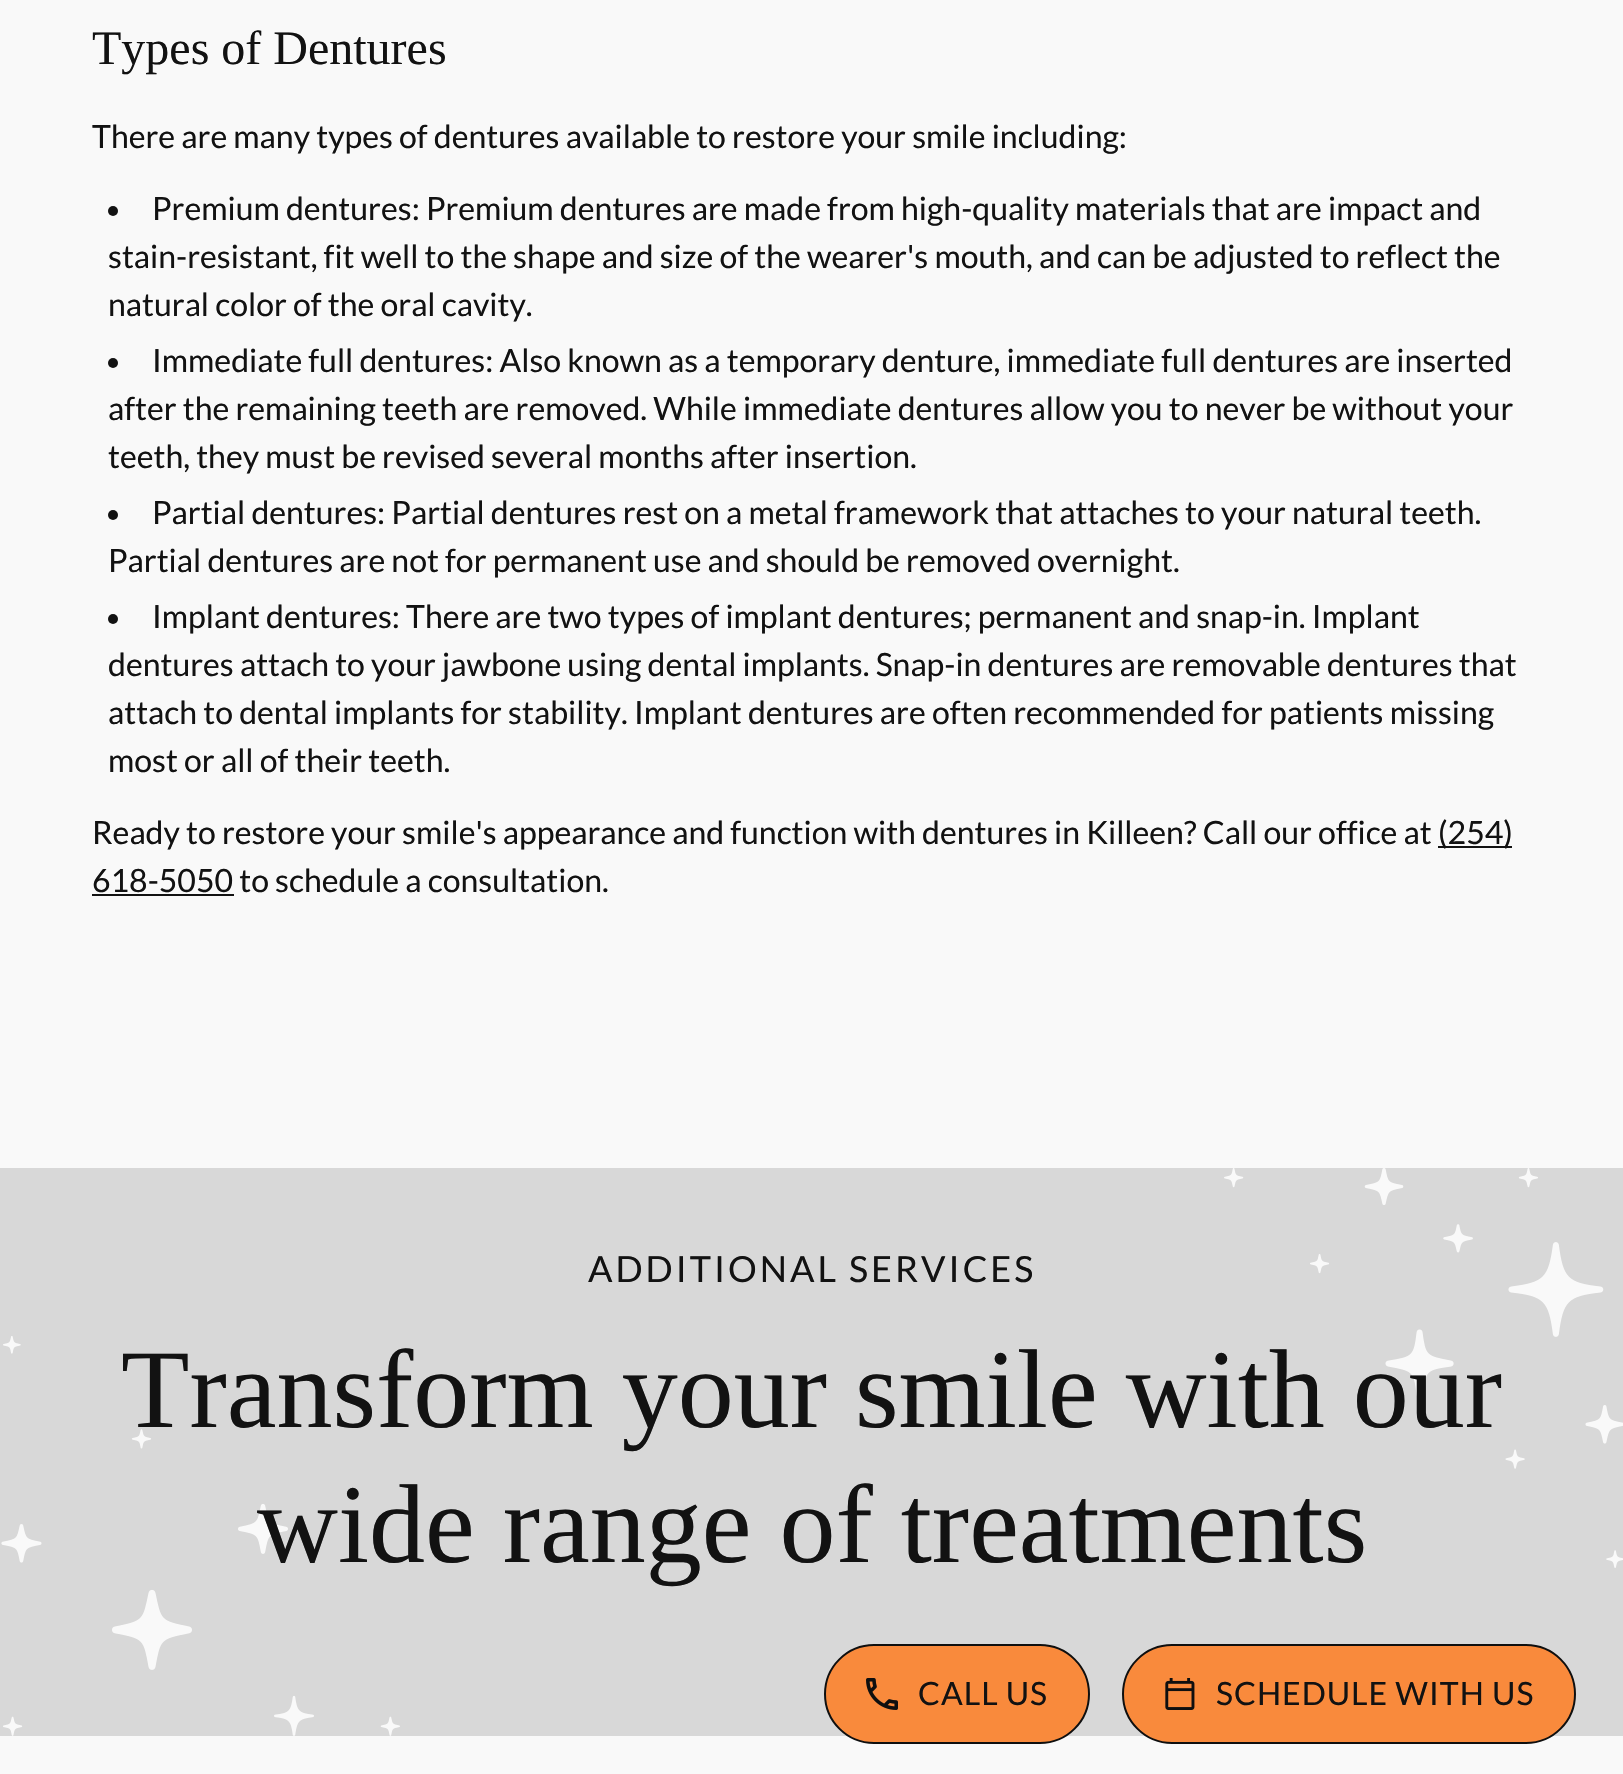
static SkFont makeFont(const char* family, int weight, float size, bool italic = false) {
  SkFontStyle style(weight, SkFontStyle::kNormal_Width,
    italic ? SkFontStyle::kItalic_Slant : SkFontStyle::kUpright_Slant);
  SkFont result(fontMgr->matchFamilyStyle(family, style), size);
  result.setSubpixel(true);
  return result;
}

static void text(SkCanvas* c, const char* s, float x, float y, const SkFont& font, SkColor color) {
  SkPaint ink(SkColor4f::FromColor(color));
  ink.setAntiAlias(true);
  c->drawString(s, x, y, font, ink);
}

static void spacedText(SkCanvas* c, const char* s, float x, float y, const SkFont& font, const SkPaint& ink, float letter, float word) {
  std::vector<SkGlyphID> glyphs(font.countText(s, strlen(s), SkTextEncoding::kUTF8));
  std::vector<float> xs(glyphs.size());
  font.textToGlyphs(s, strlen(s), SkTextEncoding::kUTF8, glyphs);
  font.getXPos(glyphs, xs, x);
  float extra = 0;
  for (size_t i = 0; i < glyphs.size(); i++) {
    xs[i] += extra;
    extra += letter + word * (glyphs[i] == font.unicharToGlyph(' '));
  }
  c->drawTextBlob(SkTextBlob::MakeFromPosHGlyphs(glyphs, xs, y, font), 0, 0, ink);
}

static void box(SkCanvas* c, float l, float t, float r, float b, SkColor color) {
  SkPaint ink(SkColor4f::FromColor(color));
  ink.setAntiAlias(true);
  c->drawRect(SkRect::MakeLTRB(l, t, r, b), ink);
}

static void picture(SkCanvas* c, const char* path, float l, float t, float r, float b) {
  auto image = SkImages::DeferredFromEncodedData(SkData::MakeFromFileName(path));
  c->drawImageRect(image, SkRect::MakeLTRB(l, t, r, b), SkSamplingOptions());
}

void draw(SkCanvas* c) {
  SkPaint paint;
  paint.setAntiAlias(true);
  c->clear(0xfff9f9f9);
  SkFont face1 = makeFont("Liberation Serif", 400, 48);
  text(c, "Types of Dentures", 92, 64, face1, 0xff121212);
  SkFont face2 = makeFont("Lato", 400, 32);
  text(c, "There are many types of dentures available to restore your smile including:", 92, 148, face2, 0xff121212);
  paint.setColor(0xff121212);
  c->drawCircle(113, 211, 5, paint);
  text(c, "Premium dentures: Premium dentures are made from high-quality materials that are impact and", 152, 220, face2, 0xff121212);
  text(c, "stain-resistant, fit well to the shape and size of the wearer's mouth, and can be adjusted to reflect the", 108, 268, face2, 0xff121212);
  text(c, "natural color of the oral cavity.", 108, 316, face2, 0xff121212);
  c->drawCircle(113, 363, 5, paint);
  text(c, "Immediate full dentures: Also known as a temporary denture, immediate full dentures are inserted", 152, 372, face2, 0xff121212);
  text(c, "after the remaining teeth are removed. While immediate dentures allow you to never be without your", 108, 420, face2, 0xff121212);
  text(c, "teeth, they must be revised several months after insertion.", 108, 468, face2, 0xff121212);
  c->drawCircle(113, 515, 5, paint);
  text(c, "Partial dentures: Partial dentures rest on a metal framework that attaches to your natural teeth.", 152, 524, face2, 0xff121212);
  text(c, "Partial dentures are not for permanent use and should be removed overnight.", 108, 572, face2, 0xff121212);
  c->drawCircle(113, 619, 5, paint);
  text(c, "Implant dentures: There are two types of implant dentures; permanent and snap-in. Implant", 152, 628, face2, 0xff121212);
  text(c, "dentures attach to your jawbone using dental implants. Snap-in dentures are removable dentures that", 108, 676, face2, 0xff121212);
  text(c, "attach to dental implants for stability. Implant dentures are often recommended for patients missing", 108, 724, face2, 0xff121212);
  text(c, "most or all of their teeth.", 108, 772, face2, 0xff121212);
  text(c, "Ready to restore your smile's appearance and function with dentures in Killeen? Call our office at", 92, 844, face2, 0xff121212);
  box(c, 1438, 846, 1512, 848, 0xff121212);
  text(c, "(254)", 1438, 844, face2, 0xff121212);
  text(c, "618-5050 to schedule a consultation.", 92, 892, face2, 0xff121212);
  box(c, 92, 894, 234, 896, 0xff121212);
  box(c, 0, 1168, 1623, 1736, 0xffd8d8d8);
  picture(c, "img_01.png", 1224, 1168, 1623, 1568);
  SkFont face3 = makeFont("Lato", 400, 36);
  spacedText(c, "ADDITIONAL SERVICES", 588, 1282, face3, paint, 3, 0);
  picture(c, "img_02.png", 1, 1336, 400, 1736);
  SkFont face4 = makeFont("Liberation Serif", 400, 112);
  text(c, "Transform your smile with our", 121, 1427, face4, 0xff121212);
  text(c, "wide range of treatments", 257, 1562, face4, 0xff121212);
  paint.setColor(0xfff98a3c);
  c->drawRoundRect(SkRect::MakeLTRB(825, 1645, 1089, 1743), 49, 49, paint);
  paint.setStyle(SkPaint::kStroke_Style);
  paint.setStrokeWidth(2);
  paint.setColor(0xff0f0f0f);
  c->drawRoundRect(SkRect::MakeLTRB(825, 1645, 1089, 1743), 49, 49, paint);
  picture(c, "img_03.png", 866, 1678, 898, 1710);
  paint.setStyle(SkPaint::kFill_Style);
  paint.setColor(0xff121212);
  spacedText(c, "CALL US", 918, 1705, face2, paint, 1, 0);
  paint.setColor(0xfff98a3c);
  c->drawRoundRect(SkRect::MakeLTRB(1123, 1645, 1575, 1743), 49, 49, paint);
  paint.setStyle(SkPaint::kStroke_Style);
  paint.setColor(0xff0f0f0f);
  c->drawRoundRect(SkRect::MakeLTRB(1123, 1645, 1575, 1743), 49, 49, paint);
  picture(c, "img_04.png", 1165, 1678, 1195, 1710);
  paint.setStyle(SkPaint::kFill_Style);
  paint.setColor(0xff121212);
  spacedText(c, "SCHEDULE WITH US", 1216, 1705, face2, paint, 1, 0);
}
